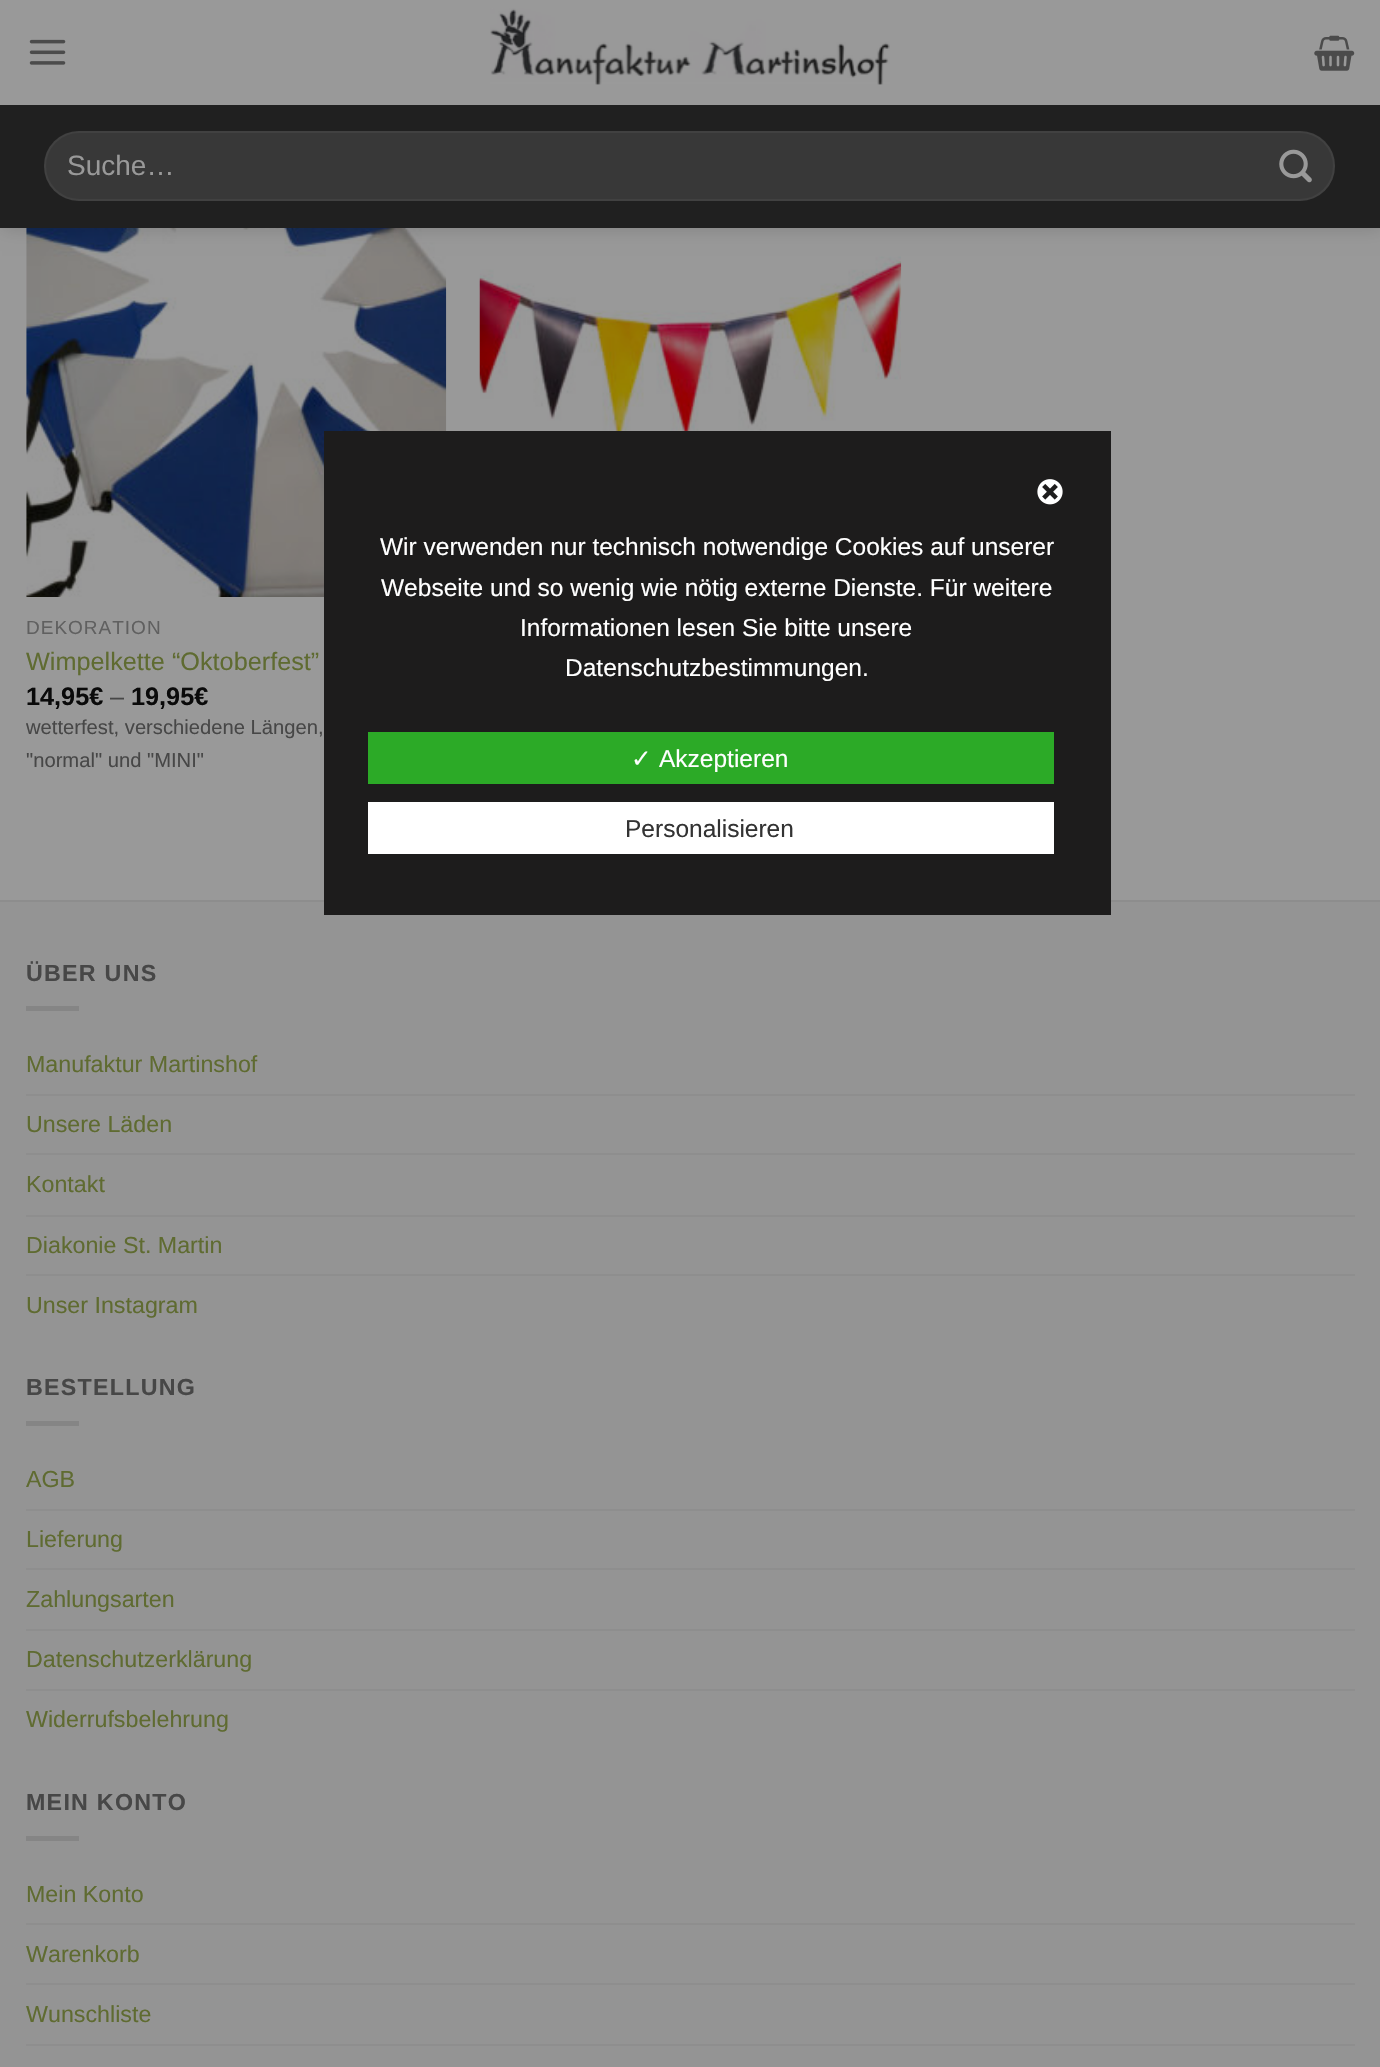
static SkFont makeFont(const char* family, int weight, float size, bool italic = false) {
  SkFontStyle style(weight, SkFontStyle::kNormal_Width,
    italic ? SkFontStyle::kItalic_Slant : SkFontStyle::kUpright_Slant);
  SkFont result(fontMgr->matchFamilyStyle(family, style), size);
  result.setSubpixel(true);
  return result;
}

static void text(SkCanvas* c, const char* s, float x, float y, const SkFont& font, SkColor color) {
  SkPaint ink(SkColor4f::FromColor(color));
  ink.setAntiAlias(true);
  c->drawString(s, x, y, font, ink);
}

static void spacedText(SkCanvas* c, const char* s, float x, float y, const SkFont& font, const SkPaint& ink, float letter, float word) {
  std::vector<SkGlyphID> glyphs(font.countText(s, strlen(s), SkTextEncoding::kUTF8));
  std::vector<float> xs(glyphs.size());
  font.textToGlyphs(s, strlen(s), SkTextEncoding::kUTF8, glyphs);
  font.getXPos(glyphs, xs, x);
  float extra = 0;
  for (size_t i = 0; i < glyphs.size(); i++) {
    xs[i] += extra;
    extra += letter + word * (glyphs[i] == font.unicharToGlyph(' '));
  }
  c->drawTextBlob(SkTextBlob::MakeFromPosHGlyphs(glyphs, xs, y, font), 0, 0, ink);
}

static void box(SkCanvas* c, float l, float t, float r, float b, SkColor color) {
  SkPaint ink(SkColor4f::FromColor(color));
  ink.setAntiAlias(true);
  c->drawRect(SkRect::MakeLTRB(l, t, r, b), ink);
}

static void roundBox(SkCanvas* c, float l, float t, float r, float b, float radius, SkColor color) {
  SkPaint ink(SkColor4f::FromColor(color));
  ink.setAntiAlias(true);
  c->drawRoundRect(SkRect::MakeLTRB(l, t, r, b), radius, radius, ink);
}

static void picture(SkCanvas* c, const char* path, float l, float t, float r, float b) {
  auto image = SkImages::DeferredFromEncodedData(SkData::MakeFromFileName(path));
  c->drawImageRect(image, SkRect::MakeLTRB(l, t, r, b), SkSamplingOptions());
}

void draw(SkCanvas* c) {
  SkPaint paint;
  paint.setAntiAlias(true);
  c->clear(0xff999999);
  picture(c, "img_05.png", 479, 256, 902, 431);
  picture(c, "img_06.png", 26, 228, 447, 597);
  paint.setColor(0x26000000);
  paint.setMaskFilter(SkMaskFilter::MakeBlur(kNormal_SkBlurStyle, 9));
  c->drawRect(SkRect::MakeLTRB(2, 2, 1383, 229), paint);
  paint.setMaskFilter(nullptr);
  box(c, 0, 0, 1380, 105, 0xff999999);
  picture(c, "img_01.png", 29, 39, 66, 65);
  picture(c, "img_02.png", 490, 8, 890, 85);
  picture(c, "img_03.png", 1314, 35, 1355, 71);
  box(c, 0, 105, 1380, 228, 0xff202020);
  roundBox(c, 44, 131, 1335, 201, 35, 0xff383838);
  paint.setStyle(SkPaint::kStroke_Style);
  paint.setStrokeWidth(2);
  paint.setColor(0x17999999);
  c->drawRoundRect(SkRect::MakeLTRB(45, 132, 1334, 200), 34, 34, paint);
  SkFont face1 = makeFont("Liberation Sans", 400, 28);
  text(c, "Suche…", 67, 175, face1, 0xff999999);
  picture(c, "img_04.png", 1279, 149, 1312, 183);
  SkFont face2 = makeFont("Liberation Sans", 400, 19);
  paint.setStyle(SkPaint::kFill_Style);
  paint.setColor(0xff606060);
  spacedText(c, "DEKORATION", 26, 634, face2, paint, 1, 0);
  SkFont face3 = makeFont("Liberation Sans", 400, 25.25f);
  text(c, "Wimpelkette “Oktoberfest”", 26, 670, face3, 0xff5f6b31);
  SkFont face4 = makeFont("Liberation Sans", 700, 25.25f);
  text(c, "14,95€", 26, 705, face4, 0xff0a0a0a);
  text(c, "–", 110, 705, face3, 0xff474747);
  text(c, "19,95€", 131, 705, face4, 0xff0a0a0a);
  SkFont face5 = makeFont("Liberation Sans", 400, 20.2f);
  text(c, "wetterfest, verschiedene Längen,", 26, 734, face5, 0xff474747);
  text(c, "\"normal\" und \"MINI\"", 26, 767, face5, 0xff474747);
  box(c, 0, 902, 1380, 2067, 0xff949494);
  box(c, 0, 900, 1380, 902, 0xff8d8d8d);
  SkFont face6 = makeFont("Liberation Sans", 700, 23.25f);
  paint.setColor(0xff474747);
  spacedText(c, "ÜBER UNS", 26, 981, face6, paint, 1.25f, 0);
  box(c, 26, 1006, 79, 1011, 0xff858585);
  SkFont face7 = makeFont("Liberation Sans", 400, 23.25f);
  text(c, "Manufaktur Martinshof", 26, 1072, face7, 0xff5f6b31);
  box(c, 26, 1094, 1355, 1096, 0xff8e8e8e);
  text(c, "Unsere Läden", 26, 1132, face7, 0xff5f6b31);
  box(c, 26, 1153, 1355, 1155, 0xff8e8e8e);
  text(c, "Kontakt", 26, 1192, face7, 0xff5f6b31);
  box(c, 26, 1215, 1355, 1217, 0xff8e8e8e);
  text(c, "Diakonie St. Martin", 26, 1253, face7, 0xff5f6b31);
  box(c, 26, 1274, 1355, 1276, 0xff8e8e8e);
  text(c, "Unser Instagram", 26, 1313, face7, 0xff5f6b31);
  spacedText(c, "BESTELLUNG", 26, 1395, face6, paint, 1.25f, 0);
  box(c, 26, 1421, 79, 1426, 0xff858585);
  text(c, "AGB", 26, 1487, face7, 0xff5f6b31);
  box(c, 26, 1509, 1355, 1511, 0xff8e8e8e);
  text(c, "Lieferung", 26, 1547, face7, 0xff5f6b31);
  box(c, 26, 1568, 1355, 1570, 0xff8e8e8e);
  text(c, "Zahlungsarten", 26, 1607, face7, 0xff5f6b31);
  box(c, 26, 1629, 1355, 1631, 0xff8e8e8e);
  text(c, "Datenschutzerklärung", 26, 1667, face7, 0xff5f6b31);
  box(c, 26, 1689, 1355, 1691, 0xff8e8e8e);
  text(c, "Widerrufsbelehrung", 26, 1727, face7, 0xff5f6b31);
  spacedText(c, "MEIN KONTO", 26, 1810, face6, paint, 1.25f, 0);
  box(c, 26, 1836, 79, 1841, 0xff858585);
  text(c, "Mein Konto", 26, 1902, face7, 0xff5f6b31);
  box(c, 26, 1923, 1355, 1925, 0xff8e8e8e);
  text(c, "Warenkorb", 26, 1962, face7, 0xff5f6b31);
  box(c, 26, 1983, 1355, 1985, 0xff8e8e8e);
  text(c, "Wunschliste", 26, 2022, face7, 0xff5f6b31);
  box(c, 26, 2044, 1355, 2046, 0xff8e8e8e);
  box(c, 324, 431, 1111, 915, 0xff1d1c1c);
  picture(c, "img_07.png", 1037, 479, 1063, 505);
  SkFont face8 = makeFont("Liberation Sans", 400, 24.5f);
  text(c, "Wir verwenden nur technisch notwendige Cookies auf unserer", 380, 555, face8, 0xffffffff);
  text(c, "Webseite und so wenig wie nötig externe Dienste. Für weitere", 381, 596, face8, 0xffffffff);
  text(c, "Informationen lesen Sie bitte unsere", 520, 636, face8, 0xffffffff);
  text(c, "Datenschutzbestimmungen.", 565, 676, face8, 0xffffffff);
  box(c, 368, 732, 1054, 784, 0xff2caa27);
  SkFont face9 = makeFont("DejaVu Sans", 400, 24.5f);
  text(c, "✓", 631, 767, face9, 0xffffffff);
  text(c, "Akzeptieren", 659, 767, face8, 0xffffffff);
  box(c, 368, 802, 1054, 854, 0xffffffff);
  text(c, "Personalisieren", 625, 837, face8, 0xff333333);
}
